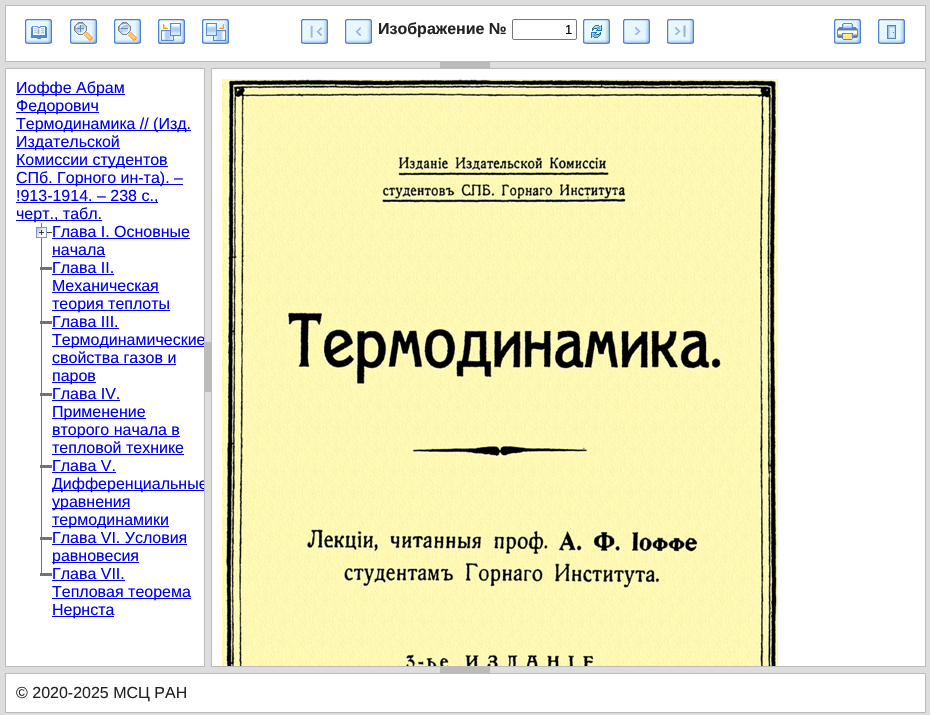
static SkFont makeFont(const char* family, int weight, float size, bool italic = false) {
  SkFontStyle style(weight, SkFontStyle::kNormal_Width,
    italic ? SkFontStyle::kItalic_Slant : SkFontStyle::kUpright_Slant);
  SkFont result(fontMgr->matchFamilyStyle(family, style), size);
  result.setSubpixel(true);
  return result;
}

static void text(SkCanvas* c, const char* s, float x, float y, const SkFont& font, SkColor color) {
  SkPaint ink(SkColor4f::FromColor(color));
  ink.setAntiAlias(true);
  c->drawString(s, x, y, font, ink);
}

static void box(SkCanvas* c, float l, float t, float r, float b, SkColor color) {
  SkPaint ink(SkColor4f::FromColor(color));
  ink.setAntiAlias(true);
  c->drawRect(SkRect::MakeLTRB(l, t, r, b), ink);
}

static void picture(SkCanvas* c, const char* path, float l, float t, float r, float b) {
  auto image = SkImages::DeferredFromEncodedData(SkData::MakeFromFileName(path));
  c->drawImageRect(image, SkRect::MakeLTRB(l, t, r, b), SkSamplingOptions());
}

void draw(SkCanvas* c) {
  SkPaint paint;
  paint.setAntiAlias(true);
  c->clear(0xffdddddd);
  paint.setColor(0xffffffff);
  c->drawRect(SkRect::MakeLTRB(5.5f, 5.5f, 925.5f, 61.5f), paint);
  paint.setStyle(SkPaint::kStroke_Style);
  paint.setStrokeWidth(1);
  paint.setColor(0xffbbbbbb);
  c->drawRect(SkRect::MakeLTRB(5.5f, 5.5f, 925.5f, 61.5f), paint);
  picture(c, "img_01.png", 25, 19, 52, 44);
  picture(c, "img_02.png", 70, 19, 97, 44);
  picture(c, "img_03.png", 114, 19, 141, 44);
  picture(c, "img_04.png", 158, 19, 185, 44);
  picture(c, "img_05.png", 202, 19, 229, 44);
  picture(c, "img_06.png", 301, 19, 328, 44);
  picture(c, "img_07.png", 345, 19, 372, 44);
  SkFont face1 = makeFont("Liberation Sans", 700, 16);
  text(c, "Изображение №", 378, 34, face1, 0xff232323);
  paint.setColor(0xff767676);
  c->drawRoundRect(SkRect::MakeLTRB(512.5f, 19.5f, 576.5f, 39.5f), 1.5f, 1.5f, paint);
  SkFont face2 = makeFont("Liberation Sans", 400, 13);
  text(c, "1", 565, 34, face2, 0xff000000);
  picture(c, "img_08.png", 583, 19, 610, 44);
  picture(c, "img_09.png", 623, 19, 650, 44);
  picture(c, "img_10.png", 667, 19, 694, 44);
  picture(c, "img_11.png", 834, 19, 861, 44);
  picture(c, "img_12.png", 878, 19, 905, 44);
  box(c, 440, 62, 490, 68, 0xffbbbbbb);
  paint.setStyle(SkPaint::kFill_Style);
  paint.setColor(0xffffffff);
  c->drawRect(SkRect::MakeLTRB(5.5f, 68.5f, 204.5f, 666.5f), paint);
  paint.setStyle(SkPaint::kStroke_Style);
  paint.setColor(0xffbbbbbb);
  c->drawRect(SkRect::MakeLTRB(5.5f, 68.5f, 204.5f, 666.5f), paint);
  box(c, 16, 94, 125, 95, 0xff0000ee);
  SkFont face3 = makeFont("Liberation Sans", 400, 16);
  text(c, "Иоффе Абрам", 16, 93, face3, 0xff0000ee);
  box(c, 16, 112, 99, 113, 0xff0000ee);
  text(c, "Федорович", 16, 111, face3, 0xff0000ee);
  box(c, 16, 130, 191, 131, 0xff0000ee);
  text(c, "Термодинамика // (Изд.", 16, 129, face3, 0xff0000ee);
  box(c, 16, 148, 120, 149, 0xff0000ee);
  text(c, "Издательской", 16, 147, face3, 0xff0000ee);
  box(c, 16, 166, 168, 167, 0xff0000ee);
  text(c, "Комиссии студентов", 16, 165, face3, 0xff0000ee);
  box(c, 16, 184, 183, 185, 0xff0000ee);
  text(c, "СПб. Горного ин-та). –", 16, 183, face3, 0xff0000ee);
  box(c, 16, 202, 158, 203, 0xff0000ee);
  text(c, "!913-1914. – 238 с.,", 16, 201, face3, 0xff0000ee);
  box(c, 16, 220, 102, 221, 0xff0000ee);
  text(c, "черт., табл.", 16, 219, face3, 0xff0000ee);
  box(c, 41, 223, 42, 574, 0xff727272);
  picture(c, "img_13.png", 36, 227, 52, 238);
  text(c, "Глава I. Основные", 52, 237, face3, 0xff0000ee);
  box(c, 52, 238, 190, 239, 0xff0000ee);
  text(c, "начала", 52, 255, face3, 0xff0000ee);
  box(c, 52, 256, 105, 257, 0xff0000ee);
  box(c, 40, 267, 52, 270, 0xff727272);
  text(c, "Глава II.", 52, 273, face3, 0xff0000ee);
  box(c, 52, 274, 114, 275, 0xff0000ee);
  text(c, "Механическая", 52, 291, face3, 0xff0000ee);
  box(c, 52, 292, 159, 293, 0xff0000ee);
  box(c, 52, 310, 170, 311, 0xff0000ee);
  text(c, "теория теплоты", 52, 309, face3, 0xff0000ee);
  box(c, 40, 321, 52, 324, 0xff727272);
  text(c, "Глава III.", 52, 327, face3, 0xff0000ee);
  box(c, 52, 328, 119, 329, 0xff0000ee);
  box(c, 52, 346, 204, 347, 0xff0000ee);
  c->save();
  c->clipRect(SkRect::MakeLTRB(6, 69, 204, 666));
  text(c, "Термодинамические", 52, 345, face3, 0xff0000ee);
  c->restore();
  text(c, "свойства газов и", 52, 363, face3, 0xff0000ee);
  box(c, 52, 364, 176, 365, 0xff0000ee);
  box(c, 52, 382, 96, 383, 0xff0000ee);
  text(c, "паров", 52, 381, face3, 0xff0000ee);
  box(c, 40, 393, 52, 396, 0xff727272);
  text(c, "Глава IV.", 52, 399, face3, 0xff0000ee);
  box(c, 52, 400, 120, 401, 0xff0000ee);
  box(c, 52, 418, 146, 419, 0xff0000ee);
  text(c, "Применение", 52, 417, face3, 0xff0000ee);
  box(c, 52, 436, 180, 437, 0xff0000ee);
  text(c, "второго начала в", 52, 435, face3, 0xff0000ee);
  text(c, "тепловой технике", 52, 453, face3, 0xff0000ee);
  box(c, 52, 454, 184, 455, 0xff0000ee);
  box(c, 40, 465, 52, 468, 0xff727272);
  text(c, "Глава V.", 52, 471, face3, 0xff0000ee);
  box(c, 52, 472, 116, 473, 0xff0000ee);
  box(c, 52, 490, 204, 491, 0xff0000ee);
  c->save();
  c->clipRect(SkRect::MakeLTRB(6, 69, 204, 666));
  text(c, "Дифференциальные", 52, 489, face3, 0xff0000ee);
  c->restore();
  box(c, 52, 508, 130, 509, 0xff0000ee);
  text(c, "уравнения", 52, 507, face3, 0xff0000ee);
  box(c, 52, 526, 169, 527, 0xff0000ee);
  text(c, "термодинамики", 52, 525, face3, 0xff0000ee);
  box(c, 40, 537, 52, 540, 0xff727272);
  text(c, "Глава VI. Условия", 52, 543, face3, 0xff0000ee);
  box(c, 52, 544, 187, 545, 0xff0000ee);
  box(c, 52, 562, 139, 563, 0xff0000ee);
  text(c, "равновесия", 52, 561, face3, 0xff0000ee);
  box(c, 40, 573, 52, 576, 0xff727272);
  text(c, "Глава VII.", 52, 579, face3, 0xff0000ee);
  box(c, 52, 580, 125, 581, 0xff0000ee);
  box(c, 52, 598, 191, 599, 0xff0000ee);
  text(c, "Тепловая теорема", 52, 597, face3, 0xff0000ee);
  box(c, 52, 616, 114, 617, 0xff0000ee);
  text(c, "Нернста", 52, 615, face3, 0xff0000ee);
  box(c, 205, 342, 211, 392, 0xffbbbbbb);
  paint.setStyle(SkPaint::kFill_Style);
  paint.setColor(0xffffffff);
  c->drawRect(SkRect::MakeLTRB(211.5f, 68.5f, 925.5f, 666.5f), paint);
  paint.setStyle(SkPaint::kStroke_Style);
  paint.setColor(0xffbbbbbb);
  c->drawRect(SkRect::MakeLTRB(211.5f, 68.5f, 925.5f, 666.5f), paint);
  picture(c, "img_14.png", 222, 79, 778, 666);
  box(c, 440, 667, 490, 673, 0xffbbbbbb);
  paint.setStyle(SkPaint::kFill_Style);
  paint.setColor(0xffffffff);
  c->drawRect(SkRect::MakeLTRB(5.5f, 673.5f, 925.5f, 712.5f), paint);
  paint.setStyle(SkPaint::kStroke_Style);
  paint.setColor(0xffbbbbbb);
  c->drawRect(SkRect::MakeLTRB(5.5f, 673.5f, 925.5f, 712.5f), paint);
  text(c, "© 2020-2025 МСЦ РАН", 16, 698, face3, 0xff232323);
}
